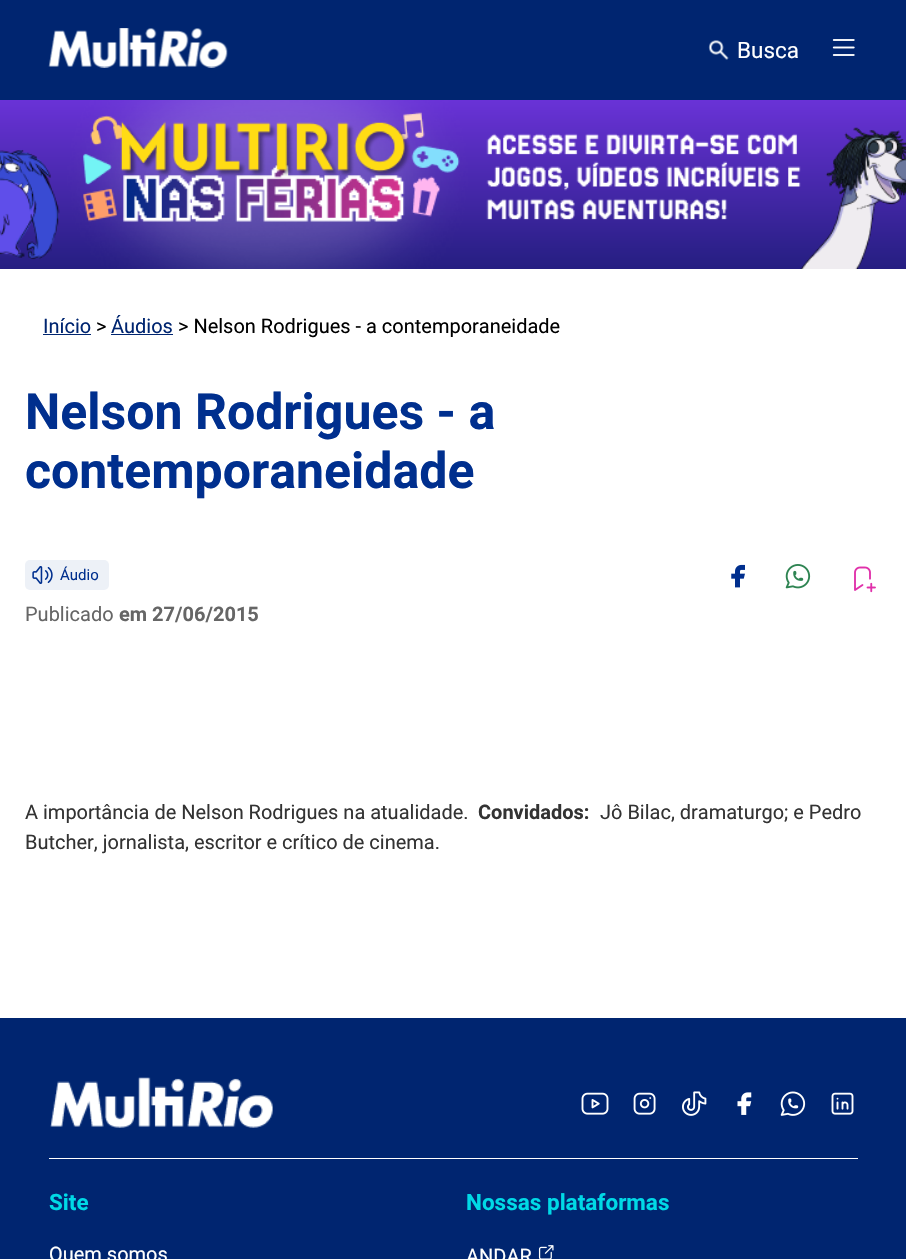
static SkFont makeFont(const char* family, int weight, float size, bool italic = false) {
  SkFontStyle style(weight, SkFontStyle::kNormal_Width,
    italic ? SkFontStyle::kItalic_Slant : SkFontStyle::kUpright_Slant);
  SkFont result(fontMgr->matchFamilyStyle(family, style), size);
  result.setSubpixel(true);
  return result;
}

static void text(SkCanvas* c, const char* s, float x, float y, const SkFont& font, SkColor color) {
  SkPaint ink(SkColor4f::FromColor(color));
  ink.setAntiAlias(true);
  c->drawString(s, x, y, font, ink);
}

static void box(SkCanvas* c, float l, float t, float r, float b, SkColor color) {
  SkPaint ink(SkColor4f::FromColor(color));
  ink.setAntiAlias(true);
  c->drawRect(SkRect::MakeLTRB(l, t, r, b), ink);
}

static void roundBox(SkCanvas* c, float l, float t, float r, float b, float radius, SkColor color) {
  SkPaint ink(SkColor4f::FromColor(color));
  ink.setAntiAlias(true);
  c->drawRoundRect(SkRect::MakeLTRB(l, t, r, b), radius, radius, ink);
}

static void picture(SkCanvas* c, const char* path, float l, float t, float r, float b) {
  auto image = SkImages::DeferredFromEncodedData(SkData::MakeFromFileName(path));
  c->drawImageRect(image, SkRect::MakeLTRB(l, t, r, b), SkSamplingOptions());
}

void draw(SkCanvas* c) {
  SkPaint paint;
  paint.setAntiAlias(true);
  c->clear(0xffffffff);
  box(c, 0, 0, 906, 100, 0xff002570);
  picture(c, "img_01.png", 48, 28, 228, 68);
  picture(c, "img_02.png", 708, 40, 729, 60);
  SkFont face1 = makeFont("Roboto", 400, 22.5f);
  text(c, "Busca", 737, 58, face1, 0xffffffff);
  picture(c, "img_03.png", 832, 39, 855, 56);
  {
    const SkColor colors[] = {0xff7636e6, 0xff251e81};
    const float stops[] = {0, 1};
    const SkPoint ends[] = {{453, 69}, {453, 269}};
    paint.setShader(SkGradientShader::MakeLinear(ends, colors, stops, 2, SkTileMode::kClamp));
    paint.setAlpha(255);
  }
  c->drawRect(SkRect::MakeLTRB(0, 100, 906, 269), paint);
  picture(c, "img_04.png", 0, 100, 906, 269);
  SkFont face2 = makeFont("Roboto", 400, 20);
  text(c, "Início", 43, 333, face2, 0xff002570);
  box(c, 43, 334, 91, 335, 0xff002570);
  text(c, ">", 96, 333, face2, 0xff000000);
  text(c, "Áudios", 111, 333, face2, 0xff002570);
  box(c, 111, 334, 173, 335, 0xff002570);
  text(c, "> Nelson Rodrigues - a contemporaneidade", 178, 333, face2, 0xff000000);
  SkFont face3 = makeFont("Roboto", 700, 50);
  text(c, "Nelson Rodrigues - a", 25, 429, face3, 0xff002f8e);
  text(c, "contemporaneidade", 25, 488, face3, 0xff002f8e);
  roundBox(c, 25, 560, 109, 590, 5, 0xffedf1f7);
  picture(c, "img_05.png", 32, 566, 53, 584);
  SkFont face4 = makeFont("Roboto", 400, 15);
  text(c, "Áudio", 60, 580, face4, 0xff002f8e);
  text(c, "Publicado", 25, 621, face2, 0xff666666);
  SkFont face5 = makeFont("Roboto", 700, 20);
  text(c, "em 27/06/2015", 119, 621, face5, 0xff666666);
  picture(c, "img_06.png", 731, 564, 745, 588);
  picture(c, "img_07.png", 785, 564, 811, 589);
  picture(c, "img_08.png", 854, 566, 876, 593);
  text(c, "A importância de Nelson Rodrigues na atualidade.", 25, 819, face2, 0xff333333);
  text(c, "Convidados:", 478, 819, face5, 0xff333333);
  text(c, "Jô Bilac, dramaturgo; e Pedro", 600, 819, face2, 0xff333333);
  text(c, "Butcher, jornalista, escritor e crítico de cinema.", 25, 849, face2, 0xff333333);
  box(c, 0, 1018, 906, 1259, 0xff002570);
  box(c, 49, 1158, 858, 1159, 0xffffffff);
  picture(c, "img_09.png", 50, 1077, 273, 1128);
  picture(c, "img_10.png", 581, 1092, 609, 1115);
  picture(c, "img_11.png", 633, 1092, 656, 1115);
  picture(c, "img_12.png", 682, 1091, 707, 1116);
  picture(c, "img_13.png", 737, 1092, 752, 1115);
  picture(c, "img_14.png", 780, 1091, 806, 1116);
  picture(c, "img_15.png", 831, 1092, 854, 1115);
  SkFont face6 = makeFont("Roboto", 700, 22.5f);
  text(c, "Site", 49, 1210, face6, 0xff00d9e6);
  text(c, "Quem somos", 49, 1261, face2, 0xffffffff);
  text(c, "Nossas plataformas", 466, 1210, face6, 0xff00d9e6);
  text(c, "ANDAR", 466, 1263, face2, 0xffffffff);
  picture(c, "img_16.png", 538, 1245, 554, 1259);
}
